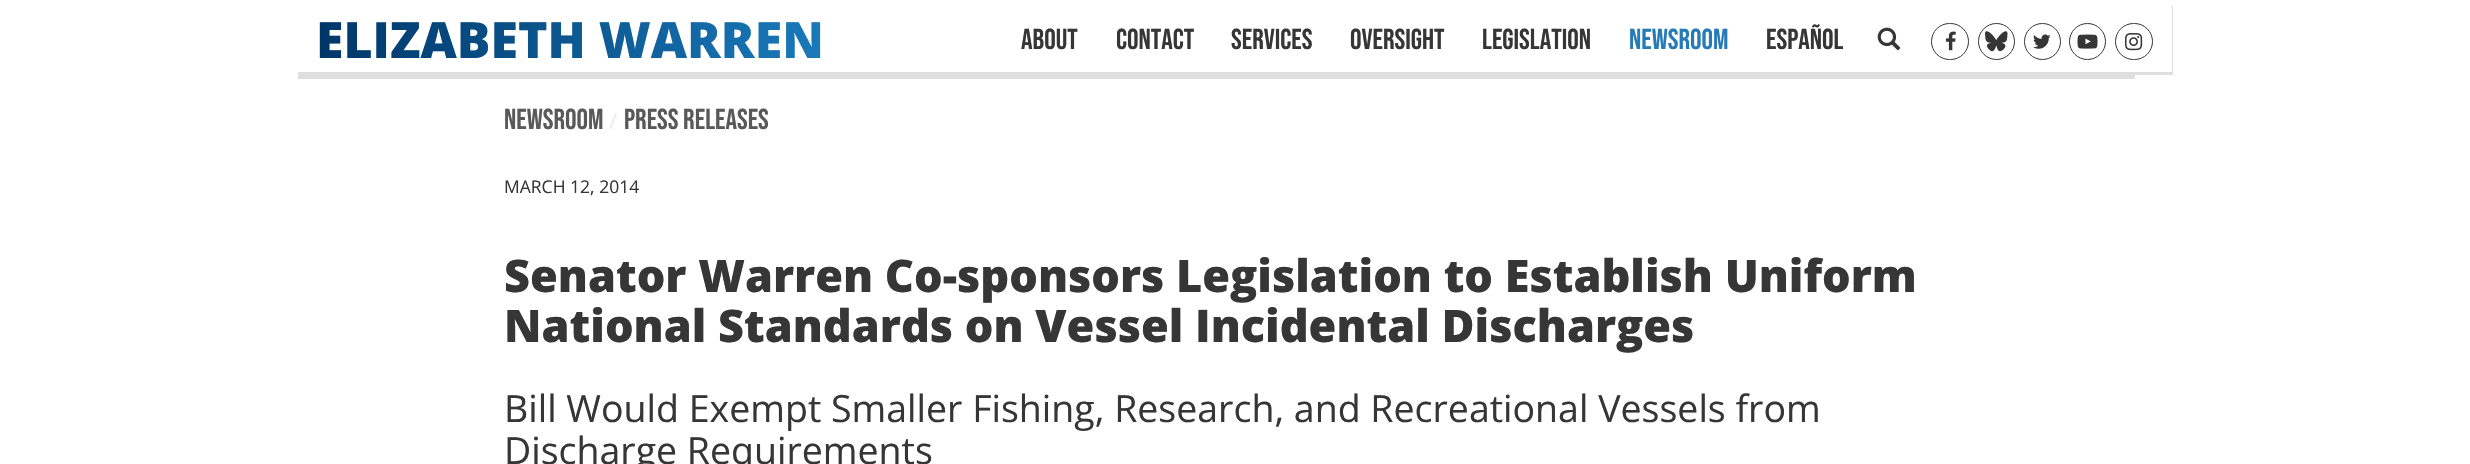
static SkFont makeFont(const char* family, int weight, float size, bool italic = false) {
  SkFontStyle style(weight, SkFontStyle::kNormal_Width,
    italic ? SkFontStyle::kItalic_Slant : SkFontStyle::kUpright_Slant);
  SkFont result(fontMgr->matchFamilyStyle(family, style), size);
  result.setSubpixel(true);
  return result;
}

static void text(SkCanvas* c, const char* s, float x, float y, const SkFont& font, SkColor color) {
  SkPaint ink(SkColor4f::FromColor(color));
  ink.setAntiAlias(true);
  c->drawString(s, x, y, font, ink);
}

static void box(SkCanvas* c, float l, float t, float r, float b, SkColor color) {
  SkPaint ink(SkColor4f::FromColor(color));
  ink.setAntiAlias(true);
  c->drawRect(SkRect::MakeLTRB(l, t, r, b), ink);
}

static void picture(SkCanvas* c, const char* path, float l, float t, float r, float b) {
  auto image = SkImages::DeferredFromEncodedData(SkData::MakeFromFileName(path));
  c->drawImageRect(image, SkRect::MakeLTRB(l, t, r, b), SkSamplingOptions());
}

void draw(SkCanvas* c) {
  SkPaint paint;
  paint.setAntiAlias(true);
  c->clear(0xffffffff);
  paint.setColor(0xffe0dfdf);
  c->drawPath(SkPathBuilder().moveTo(298, 72).lineTo(298, 79).lineTo(2173, 79).lineTo(2173, 6).lineTo(2172, 6).lineTo(2172, 72).close().detach(), paint);
  SkFont face1 = makeFont("Open Sans", 800, 50);
  {
    const SkColor colors[] = {0xff003668, 0xff1a7bbc};
    const float stops[] = {0, 1};
    const SkPoint ends[] = {{316, 39}, {835, 39}};
    paint.setShader(SkGradientShader::MakeLinear(ends, colors, stops, 2, SkTileMode::kClamp));
    paint.setAlpha(255);
  }
  c->drawString("ELIZABETH WARREN", 316, 58, face1, paint);
  SkFont face2 = makeFont("Bebas Neue", 400, 28.75f);
  text(c, "ABOUT", 1021, 49, face2, 0xff363636);
  text(c, "CONTACT", 1116, 49, face2, 0xff363636);
  text(c, "SERVICES", 1231, 49, face2, 0xff363636);
  text(c, "OVERSIGHT", 1350, 49, face2, 0xff363636);
  text(c, "LEGISLATION", 1482, 49, face2, 0xff363636);
  text(c, "NEWSROOM", 1629, 49, face2, 0xff267ab5);
  text(c, "ESPAÑOL", 1766, 49, face2, 0xff363636);
  picture(c, "img_01.png", 1877, 27, 1901, 51);
  paint.setStyle(SkPaint::kStroke_Style);
  paint.setStrokeWidth(1);
  paint.setShader(nullptr);
  paint.setColor(0xff363636);
  c->drawRoundRect(SkRect::MakeLTRB(1931.5f, 23.5f, 1968.5f, 59.5f), 18, 18, paint);
  picture(c, "img_02.png", 1946, 31, 1956, 51);
  c->drawCircle(1996.5f, 41.5f, 18, paint);
  picture(c, "img_03.png", 1985, 31, 2008, 52);
  c->drawCircle(2042.5f, 41.5f, 18, paint);
  picture(c, "img_04.png", 2033, 34, 2051, 49);
  c->drawCircle(2087.5f, 41.5f, 18, paint);
  picture(c, "img_05.png", 2077, 34, 2098, 49);
  c->drawRoundRect(SkRect::MakeLTRB(2115.5f, 23.5f, 2152.5f, 59.5f), 18, 18, paint);
  picture(c, "img_06.png", 2125, 33, 2143, 51);
  box(c, 2135, 75, 2173, 79, 0xffffffff);
  text(c, "NEWSROOM", 504, 129, face2, 0xff595959);
  SkFont face3 = makeFont("Open Sans", 400, 22);
  text(c, "/", 609, 129, face3, 0xffeeeeee);
  text(c, "PRESS RELEASES", 624, 129, face2, 0xff595959);
  SkFont face4 = makeFont("Open Sans", 400, 17.5f);
  text(c, "MARCH 12, 2014", 504, 193, face4, 0xff363636);
  SkFont face5 = makeFont("Open Sans", 800, 45);
  text(c, "Senator Warren Co-sponsors Legislation to Establish Uniform", 504, 292, face5, 0xff363636);
  text(c, "National Standards on Vessel Incidental Discharges", 504, 342, face5, 0xff363636);
  SkFont face6 = makeFont("Open Sans", 400, 37.5f);
  text(c, "Bill Would Exempt Smaller Fishing, Research, and Recreational Vessels from", 504, 422, face6, 0xff363636);
  text(c, "Discharge Requirements", 504, 464, face6, 0xff363636);
}
